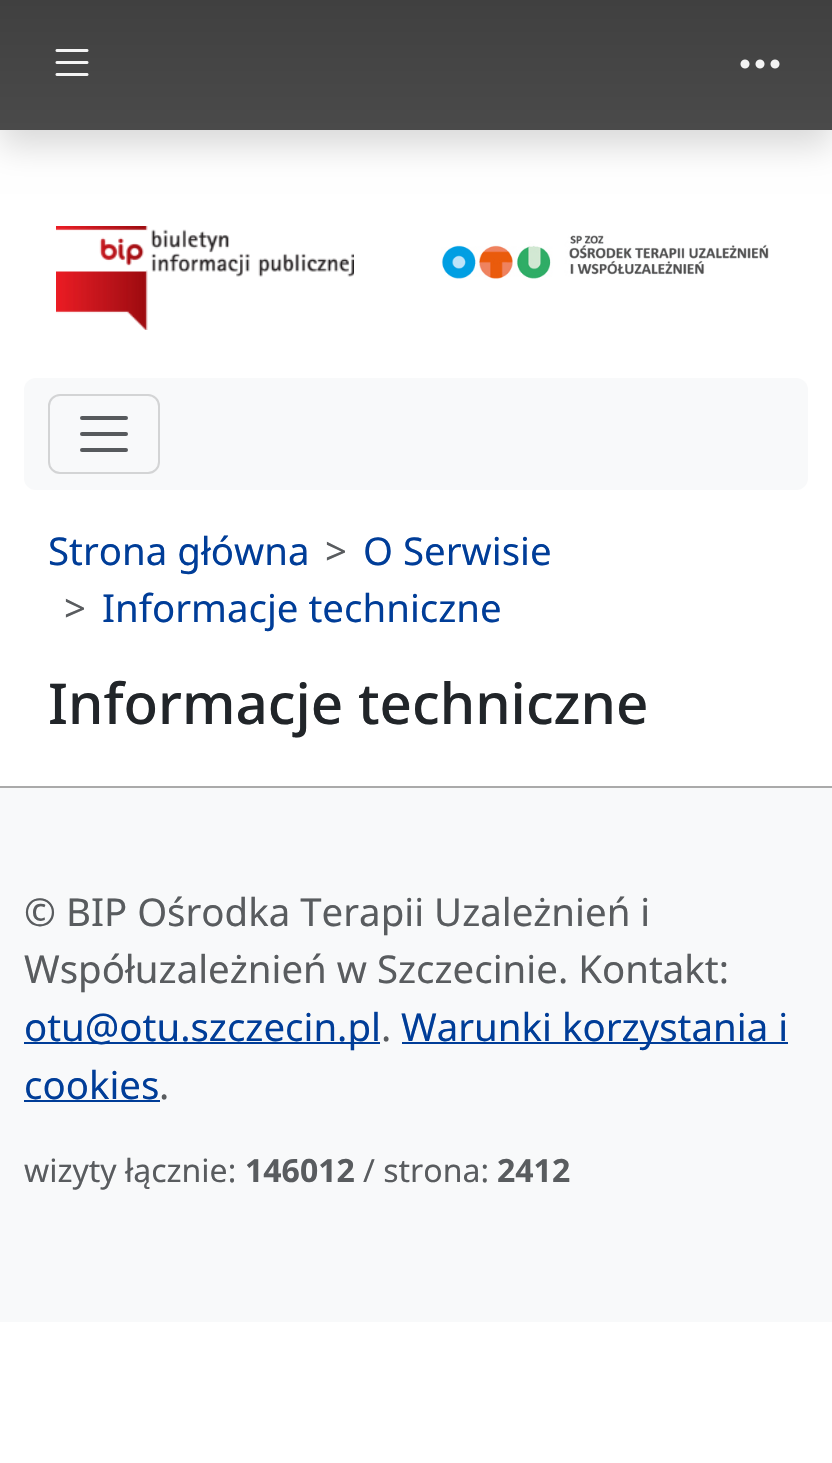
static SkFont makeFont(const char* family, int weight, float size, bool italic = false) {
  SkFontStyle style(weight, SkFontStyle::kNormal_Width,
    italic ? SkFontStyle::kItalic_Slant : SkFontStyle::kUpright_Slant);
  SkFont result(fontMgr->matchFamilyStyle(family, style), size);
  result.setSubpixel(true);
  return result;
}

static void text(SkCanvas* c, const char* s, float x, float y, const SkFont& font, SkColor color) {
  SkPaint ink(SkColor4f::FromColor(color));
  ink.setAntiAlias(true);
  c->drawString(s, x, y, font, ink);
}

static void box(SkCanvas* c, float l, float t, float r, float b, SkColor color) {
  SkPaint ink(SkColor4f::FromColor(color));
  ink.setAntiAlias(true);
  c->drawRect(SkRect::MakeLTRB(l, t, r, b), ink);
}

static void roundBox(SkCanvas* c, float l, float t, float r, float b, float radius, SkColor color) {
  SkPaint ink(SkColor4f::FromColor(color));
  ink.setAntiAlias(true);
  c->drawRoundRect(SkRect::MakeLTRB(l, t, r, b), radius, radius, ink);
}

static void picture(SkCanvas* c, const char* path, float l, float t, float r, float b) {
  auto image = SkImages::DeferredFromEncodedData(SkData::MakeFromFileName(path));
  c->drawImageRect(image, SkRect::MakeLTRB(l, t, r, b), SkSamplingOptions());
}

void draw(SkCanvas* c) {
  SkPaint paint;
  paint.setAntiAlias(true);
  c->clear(0xffffffff);
  paint.setColor(0x26000000);
  paint.setMaskFilter(SkMaskFilter::MakeBlur(kNormal_SkBlurStyle, 16));
  c->drawRect(SkRect::MakeLTRB(0, 16, 832, 146), paint);
  paint.setMaskFilter(nullptr);
  {
    const SkColor colors[] = {0xff404040, 0xff4a4a4a};
    const float stops[] = {0, 1};
    const SkPoint ends[] = {{416, 0}, {416, 130}};
    paint.setShader(SkGradientShader::MakeLinear(ends, colors, stops, 2, SkTileMode::kClamp));
    paint.setAlpha(255);
  }
  c->drawRect(SkRect::MakeLTRB(0, 0, 832, 130), paint);
  picture(c, "img_01.png", 55, 49, 89, 76);
  picture(c, "img_02.png", 740, 59, 780, 69);
  picture(c, "img_03.png", 56, 226, 354, 330);
  picture(c, "img_04.png", 441, 235, 769, 280);
  roundBox(c, 24, 378, 808, 490, 12, 0xfff8f9fa);
  paint.setStyle(SkPaint::kStroke_Style);
  paint.setStrokeWidth(2);
  paint.setShader(nullptr);
  paint.setColor(0xffd3d4d5);
  c->drawRoundRect(SkRect::MakeLTRB(49, 395, 159, 473), 11, 11, paint);
  paint.setStrokeWidth(4);
  paint.setStrokeCap(SkPaint::kRound_Cap);
  paint.setColor(0xff575a5d);
  c->drawPath(SkPathBuilder().moveTo(82, 418).lineTo(126, 418).moveTo(82, 434).lineTo(126, 434).moveTo(82, 450).lineTo(126, 450).detach(), paint);
  SkFont face1 = makeFont("Noto Sans", 400, 38.4f);
  text(c, "Strona główna", 48, 565, face1, 0xff003d98);
  text(c, ">", 325, 565, face1, 0xff595c5f);
  text(c, "O Serwisie", 363, 565, face1, 0xff003d98);
  text(c, ">", 64, 622, face1, 0xff595c5f);
  text(c, "Informacje techniczne", 102, 622, face1, 0xff003d98);
  SkFont face2 = makeFont("Noto Sans", 500, 56.5f);
  text(c, "Informacje techniczne", 48, 724, face2, 0xff212529);
  box(c, 0, 788, 832, 1322, 0xfff8f9fa);
  box(c, 0, 786, 832, 788, 0xffaaaaaa);
  text(c, "© BIP Ośrodka Terapii Uzależnień i", 24, 926, face1, 0xff595c5f);
  text(c, "Współuzależnień w Szczecinie. Kontakt:", 24, 983, face1, 0xff595c5f);
  box(c, 24, 1042, 380, 1044, 0xff003d98);
  text(c, "otu@otu.szczecin.pl", 24, 1041, face1, 0xff003d98);
  text(c, ".", 381, 1041, face1, 0xff595c5f);
  box(c, 402, 1042, 788, 1044, 0xff003d98);
  text(c, "Warunki korzystania i", 401, 1041, face1, 0xff003d98);
  text(c, "cookies", 24, 1099, face1, 0xff003d98);
  box(c, 24, 1100, 160, 1102, 0xff003d98);
  text(c, ".", 159, 1099, face1, 0xff595c5f);
  SkFont face3 = makeFont("Noto Sans", 400, 32);
  text(c, "wizyty łącznie:", 24, 1182, face3, 0xff595c5f);
  SkFont face4 = makeFont("Noto Sans", 700, 32);
  text(c, "146012", 245, 1182, face4, 0xff595c5f);
  text(c, "/ strona:", 363, 1182, face3, 0xff595c5f);
  text(c, "2412", 497, 1182, face4, 0xff595c5f);
}
